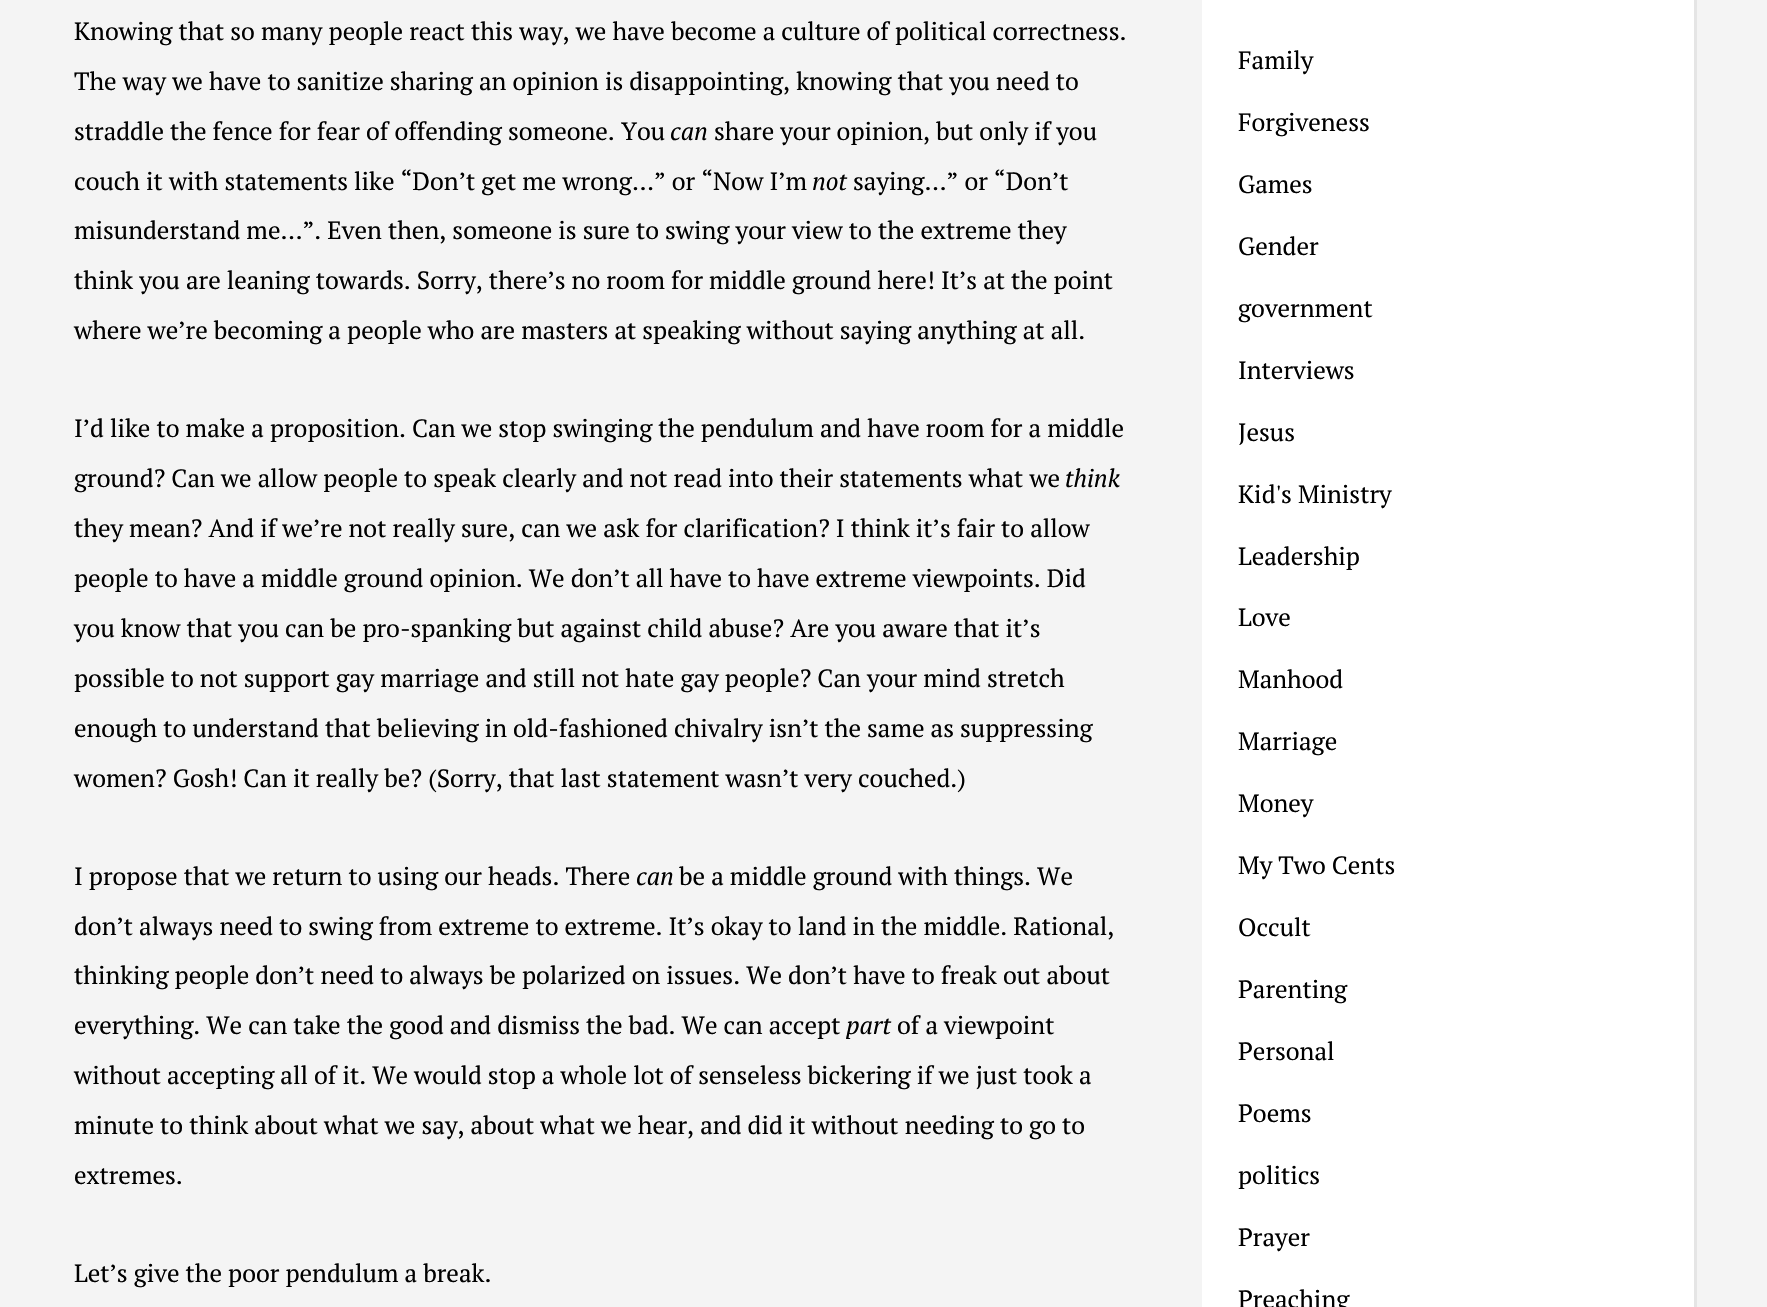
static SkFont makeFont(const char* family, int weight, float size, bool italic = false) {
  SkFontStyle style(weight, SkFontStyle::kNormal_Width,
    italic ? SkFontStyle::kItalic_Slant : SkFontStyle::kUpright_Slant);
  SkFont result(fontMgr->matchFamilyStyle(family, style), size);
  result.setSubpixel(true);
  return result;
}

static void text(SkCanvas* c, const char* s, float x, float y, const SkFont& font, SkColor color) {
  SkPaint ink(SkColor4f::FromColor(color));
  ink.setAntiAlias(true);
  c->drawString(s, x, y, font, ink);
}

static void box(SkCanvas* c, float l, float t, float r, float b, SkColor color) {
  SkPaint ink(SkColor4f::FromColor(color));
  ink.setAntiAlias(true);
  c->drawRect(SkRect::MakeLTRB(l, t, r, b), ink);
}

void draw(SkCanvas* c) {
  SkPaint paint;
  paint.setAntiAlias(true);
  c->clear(0xfff4f4f4);
  SkFont face1 = makeFont("PT Serif", 400, 24.95f);
  text(c, "Knowing that so many people react this way, we have become a culture of political correctness.", 74, 40, face1, 0xff000000);
  text(c, "The way we have to sanitize sharing an opinion is disappointing, knowing that you need to", 74, 90, face1, 0xff000000);
  text(c, "straddle the fence for fear of offending someone. You", 74, 140, face1, 0xff000000);
  SkFont face2 = makeFont("PT Serif", 400, 24.95f, true);
  text(c, "can", 670, 140, face2, 0xff000000);
  text(c, "share your opinion, but only if you", 714, 140, face1, 0xff000000);
  text(c, "couch it with statements like “Don’t get me wrong…” or “Now I’m", 74, 190, face1, 0xff000000);
  text(c, "not", 812, 190, face2, 0xff000000);
  text(c, "saying…” or “Don’t", 853, 190, face1, 0xff000000);
  text(c, "misunderstand me…”. Even then, someone is sure to swing your view to the extreme they", 74, 239, face1, 0xff000000);
  text(c, "think you are leaning towards. Sorry, there’s no room for middle ground here! It’s at the point", 74, 289, face1, 0xff000000);
  text(c, "where we’re becoming a people who are masters at speaking without saying anything at all.", 74, 339, face1, 0xff000000);
  text(c, "I’d like to make a proposition. Can we stop swinging the pendulum and have room for a middle", 74, 437, face1, 0xff000000);
  text(c, "ground? Can we allow people to speak clearly and not read into their statements what we", 74, 487, face1, 0xff000000);
  text(c, "think", 1065, 487, face2, 0xff000000);
  text(c, "they mean? And if we’re not really sure, can we ask for clarification? I think it’s fair to allow", 74, 537, face1, 0xff000000);
  text(c, "people to have a middle ground opinion. We don’t all have to have extreme viewpoints. Did", 74, 587, face1, 0xff000000);
  text(c, "you know that you can be pro-spanking but against child abuse? Are you aware that it’s", 74, 637, face1, 0xff000000);
  text(c, "possible to not support gay marriage and still not hate gay people? Can your mind stretch", 74, 687, face1, 0xff000000);
  text(c, "enough to understand that believing in old-fashioned chivalry isn’t the same as suppressing", 74, 737, face1, 0xff000000);
  text(c, "women? Gosh! Can it really be? (Sorry, that last statement wasn’t very couched.)", 74, 787, face1, 0xff000000);
  text(c, "I propose that we return to using our heads. There", 74, 885, face1, 0xff000000);
  text(c, "can", 636, 885, face2, 0xff000000);
  text(c, "be a middle ground with things. We", 679, 885, face1, 0xff000000);
  text(c, "don’t always need to swing from extreme to extreme. It’s okay to land in the middle. Rational,", 74, 935, face1, 0xff000000);
  text(c, "thinking people don’t need to always be polarized on issues. We don’t have to freak out about", 74, 984, face1, 0xff000000);
  text(c, "everything. We can take the good and dismiss the bad. We can accept", 74, 1034, face1, 0xff000000);
  text(c, "part", 846, 1034, face2, 0xff000000);
  text(c, "of a viewpoint", 897, 1034, face1, 0xff000000);
  text(c, "without accepting all of it. We would stop a whole lot of senseless bickering if we just took a", 74, 1084, face1, 0xff000000);
  text(c, "minute to think about what we say, about what we hear, and did it without needing to go to", 74, 1134, face1, 0xff000000);
  text(c, "extremes.", 74, 1184, face1, 0xff000000);
  text(c, "Let’s give the poor pendulum a break.", 74, 1282, face1, 0xff000000);
  paint.setColor(0xffe5e5e5);
  c->drawPath(SkPathBuilder().moveTo(1205, 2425).cubicTo(1206, 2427, 1208, 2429, 1210, 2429).lineTo(1692, 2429).cubicTo(1695, 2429, 1697, 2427, 1697, 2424).lineTo(1697, -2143).cubicTo(1697, -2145, 1695, -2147, 1693, -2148).lineTo(1694, 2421).cubicTo(1693, 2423, 1691, 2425, 1689, 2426).close().detach(), paint);
  box(c, 1202, 0, 1694, 1307, 0xffffffff);
  text(c, "Family", 1238, 69, face1, 0xff000000);
  text(c, "Forgiveness", 1238, 131, face1, 0xff000000);
  text(c, "Games", 1238, 193, face1, 0xff000000);
  text(c, "Gender", 1238, 255, face1, 0xff000000);
  text(c, "government", 1238, 317, face1, 0xff000000);
  text(c, "Interviews", 1238, 379, face1, 0xff000000);
  text(c, "Jesus", 1238, 441, face1, 0xff000000);
  text(c, "Kid's Ministry", 1238, 503, face1, 0xff000000);
  text(c, "Leadership", 1238, 565, face1, 0xff000000);
  text(c, "Love", 1238, 626, face1, 0xff000000);
  text(c, "Manhood", 1238, 688, face1, 0xff000000);
  text(c, "Marriage", 1238, 750, face1, 0xff000000);
  text(c, "Money", 1238, 812, face1, 0xff000000);
  text(c, "My Two Cents", 1238, 874, face1, 0xff000000);
  text(c, "Occult", 1238, 936, face1, 0xff000000);
  text(c, "Parenting", 1238, 998, face1, 0xff000000);
  text(c, "Personal", 1238, 1060, face1, 0xff000000);
  text(c, "Poems", 1238, 1122, face1, 0xff000000);
  text(c, "politics", 1238, 1184, face1, 0xff000000);
  text(c, "Prayer", 1238, 1246, face1, 0xff000000);
  text(c, "Preaching", 1238, 1308, face1, 0xff000000);
}
